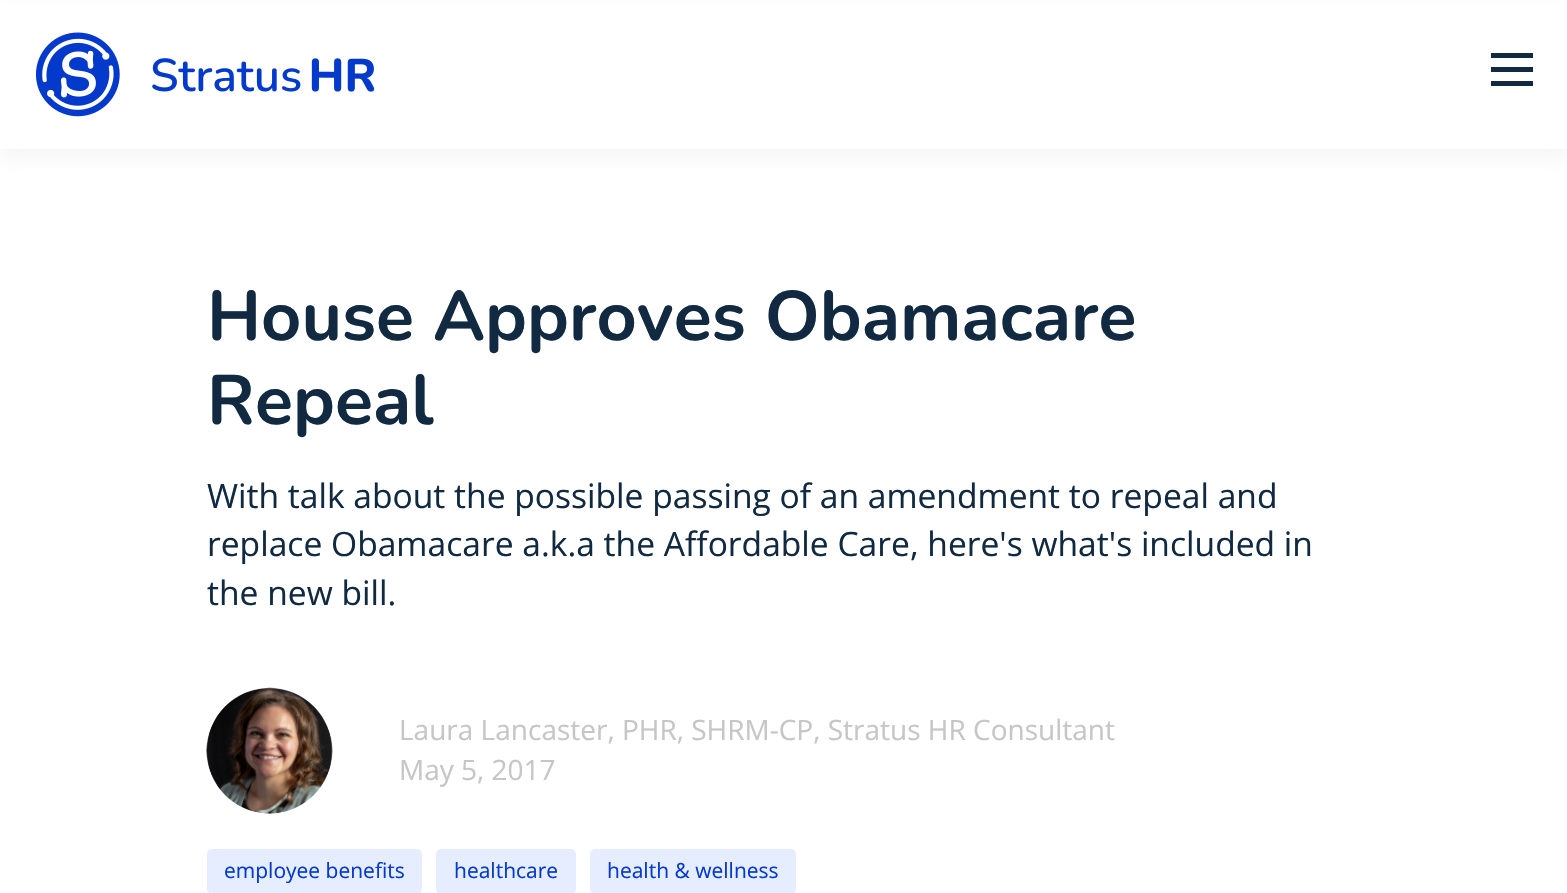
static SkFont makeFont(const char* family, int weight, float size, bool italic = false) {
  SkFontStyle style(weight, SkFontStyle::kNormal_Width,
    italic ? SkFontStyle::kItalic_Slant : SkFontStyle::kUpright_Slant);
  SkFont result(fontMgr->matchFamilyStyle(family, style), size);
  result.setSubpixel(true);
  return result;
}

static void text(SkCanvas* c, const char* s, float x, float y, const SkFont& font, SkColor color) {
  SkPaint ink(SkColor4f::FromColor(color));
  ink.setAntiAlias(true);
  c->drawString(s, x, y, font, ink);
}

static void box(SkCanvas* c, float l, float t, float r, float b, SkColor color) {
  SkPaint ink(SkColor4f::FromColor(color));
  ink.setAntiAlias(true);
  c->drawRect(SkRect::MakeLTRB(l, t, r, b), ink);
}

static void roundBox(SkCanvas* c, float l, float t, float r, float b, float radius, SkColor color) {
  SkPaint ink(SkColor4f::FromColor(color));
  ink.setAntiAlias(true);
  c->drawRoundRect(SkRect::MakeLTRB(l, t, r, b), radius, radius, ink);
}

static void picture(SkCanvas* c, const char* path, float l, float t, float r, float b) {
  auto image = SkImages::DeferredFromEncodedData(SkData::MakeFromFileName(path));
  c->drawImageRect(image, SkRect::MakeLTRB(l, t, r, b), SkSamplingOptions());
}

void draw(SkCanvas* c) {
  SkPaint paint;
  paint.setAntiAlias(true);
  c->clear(0xffffffff);
  paint.setColor(0x1a9aa1b1);
  paint.setMaskFilter(SkMaskFilter::MakeBlur(kNormal_SkBlurStyle, 9));
  c->drawRect(SkRect::MakeLTRB(0, 9, 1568, 158), paint);
  paint.setMaskFilter(nullptr);
  box(c, 0, 3, 1567, 149, 0xffffffff);
  picture(c, "img_01.png", 35, 32, 375, 117);
  box(c, 1491, 67, 1533, 72, 0xff112a41);
  box(c, 1491, 53, 1533, 58, 0xff112a41);
  box(c, 1491, 81, 1533, 86, 0xff112a41);
  SkFont face1 = makeFont("Nunito", 700, 70);
  text(c, "House Approves Obamacare", 207, 340, face1, 0xff112a41);
  text(c, "Repeal", 207, 424, face1, 0xff112a41);
  SkFont face2 = makeFont("Open Sans", 400, 33.6f);
  text(c, "With talk about the possible passing of an amendment to repeal and", 207, 508, face2, 0xff112a41);
  text(c, "replace Obamacare a.k.a the Affordable Care, here's what's included in", 207, 556, face2, 0xff112a41);
  text(c, "the new bill.", 207, 605, face2, 0xff112a41);
  picture(c, "img_02.png", 206, 687, 333, 814);
  SkFont face3 = makeFont("Open Sans", 400, 28);
  text(c, "Laura Lancaster, PHR, SHRM-CP, Stratus HR Consultant", 399, 740, face3, 0xffc6c6c6);
  text(c, "May 5, 2017", 399, 780, face3, 0xffc6c6c6);
  roundBox(c, 207, 849, 422, 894, 5, 0xffe6edff);
  SkFont face4 = makeFont("Open Sans", 400, 21);
  text(c, "employee benefits", 224, 878, face4, 0xff033acb);
  roundBox(c, 436, 849, 576, 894, 5, 0xffe6edff);
  text(c, "healthcare", 454, 878, face4, 0xff033acb);
  roundBox(c, 590, 849, 796, 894, 5, 0xffe6edff);
  text(c, "health & wellness", 607, 878, face4, 0xff033acb);
}
